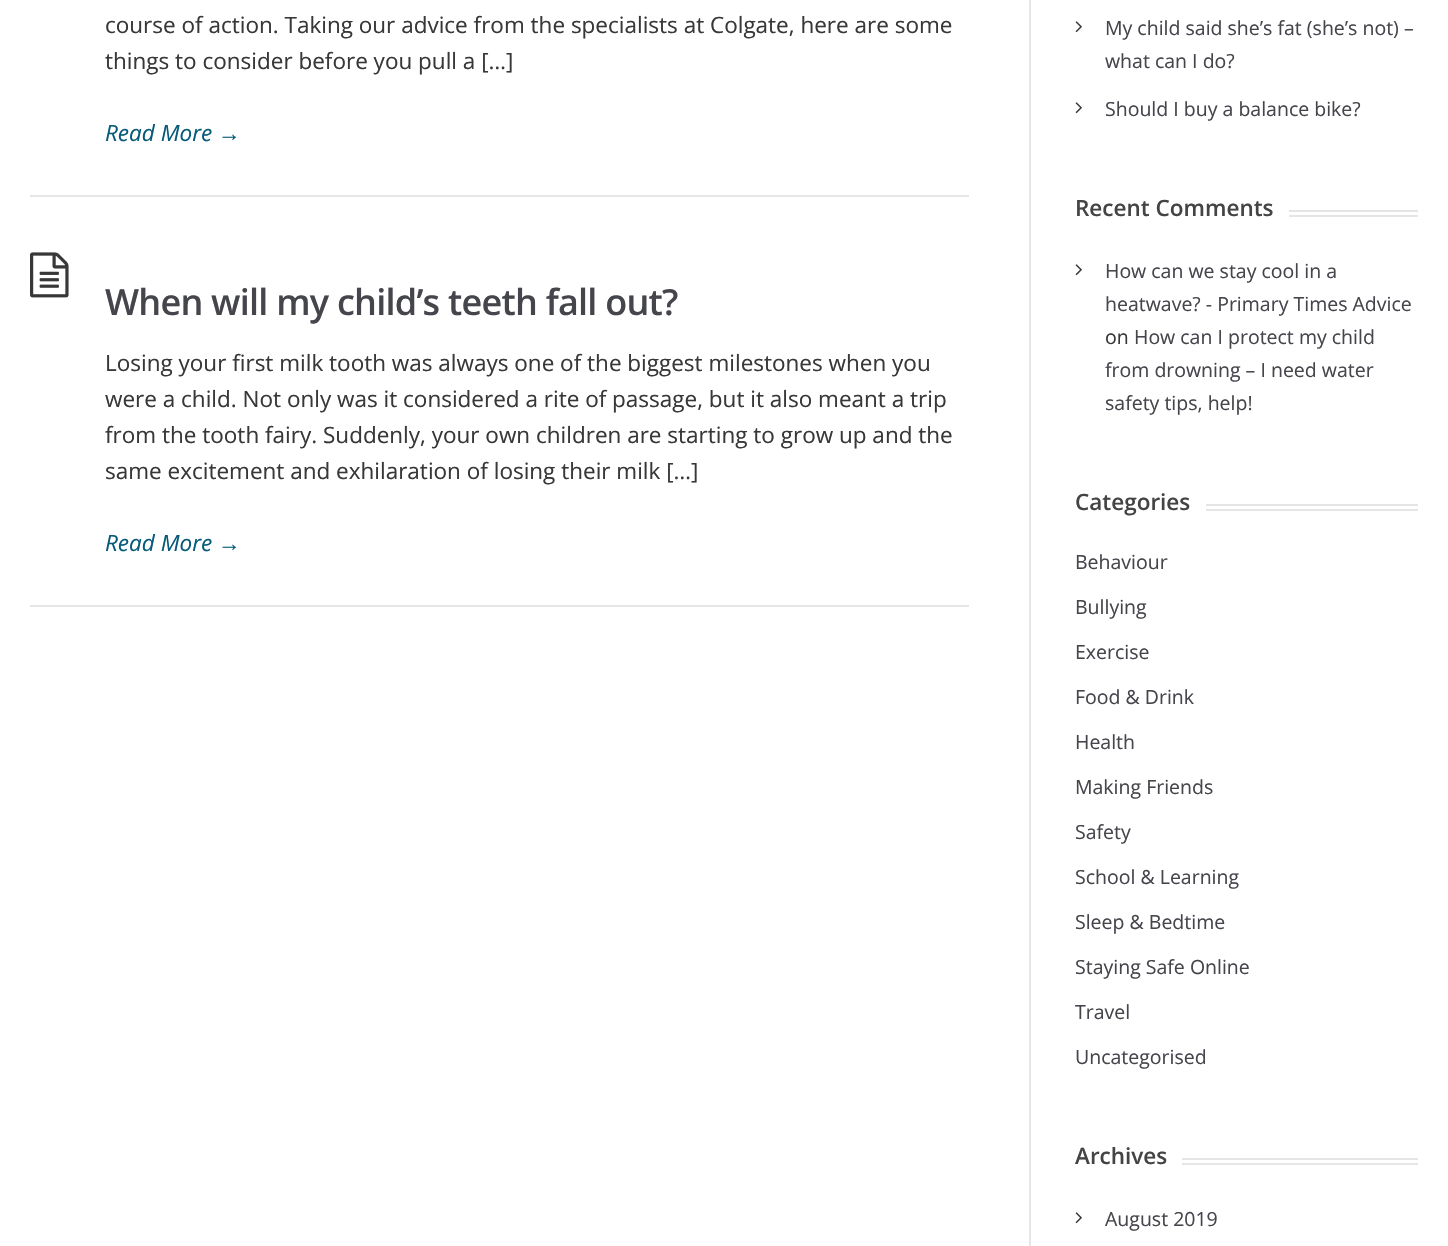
static SkFont makeFont(const char* family, int weight, float size, bool italic = false) {
  SkFontStyle style(weight, SkFontStyle::kNormal_Width,
    italic ? SkFontStyle::kItalic_Slant : SkFontStyle::kUpright_Slant);
  SkFont result(fontMgr->matchFamilyStyle(family, style), size);
  result.setSubpixel(true);
  return result;
}

static void text(SkCanvas* c, const char* s, float x, float y, const SkFont& font, SkColor color) {
  SkPaint ink(SkColor4f::FromColor(color));
  ink.setAntiAlias(true);
  c->drawString(s, x, y, font, ink);
}

static void spacedText(SkCanvas* c, const char* s, float x, float y, const SkFont& font, const SkPaint& ink, float letter, float word) {
  std::vector<SkGlyphID> glyphs(font.countText(s, strlen(s), SkTextEncoding::kUTF8));
  std::vector<float> xs(glyphs.size());
  font.textToGlyphs(s, strlen(s), SkTextEncoding::kUTF8, glyphs);
  font.getXPos(glyphs, xs, x);
  float extra = 0;
  for (size_t i = 0; i < glyphs.size(); i++) {
    xs[i] += extra;
    extra += letter + word * (glyphs[i] == font.unicharToGlyph(' '));
  }
  c->drawTextBlob(SkTextBlob::MakeFromPosHGlyphs(glyphs, xs, y, font), 0, 0, ink);
}

static void box(SkCanvas* c, float l, float t, float r, float b, SkColor color) {
  SkPaint ink(SkColor4f::FromColor(color));
  ink.setAntiAlias(true);
  c->drawRect(SkRect::MakeLTRB(l, t, r, b), ink);
}

static void picture(SkCanvas* c, const char* path, float l, float t, float r, float b) {
  auto image = SkImages::DeferredFromEncodedData(SkData::MakeFromFileName(path));
  c->drawImageRect(image, SkRect::MakeLTRB(l, t, r, b), SkSamplingOptions());
}

void draw(SkCanvas* c) {
  SkPaint paint;
  paint.setAntiAlias(true);
  c->clear(0xffffffff);
  box(c, 30, 195, 969, 197, 0xffe6e6e6);
  SkFont face1 = makeFont("Open Sans", 400, 22.5f);
  text(c, "course of action. Taking our advice from the specialists at Colgate, here are some", 105, 33, face1, 0xff383838);
  text(c, "things to consider before you pull a […]", 105, 69, face1, 0xff383838);
  SkFont face2 = makeFont("Open Sans", 400, 22.5f, true);
  text(c, "Read More", 105, 141, face2, 0xff075b7a);
  SkFont face3 = makeFont("Liberation Sans", 400, 22.5f, true);
  text(c, "→", 218, 141, face3, 0xff075b7a);
  box(c, 30, 605, 969, 607, 0xffe6e6e6);
  picture(c, "img_01.png", 30, 252, 69, 298);
  SkFont face4 = makeFont("Open Sans", 600, 36);
  paint.setColor(0xff45454c);
  spacedText(c, "When will my child’s teeth fall out?", 105, 315, face4, paint, -0.75f, 0);
  text(c, "Losing your first milk tooth was always one of the biggest milestones when you", 105, 371, face1, 0xff383838);
  text(c, "were a child. Not only was it considered a rite of passage, but it also meant a trip", 105, 407, face1, 0xff383838);
  text(c, "from the tooth fairy. Suddenly, your own children are starting to grow up and the", 105, 443, face1, 0xff383838);
  text(c, "same excitement and exhilaration of losing their milk […]", 105, 479, face1, 0xff383838);
  text(c, "Read More", 105, 551, face2, 0xff075b7a);
  text(c, "→", 218, 551, face3, 0xff075b7a);
  box(c, 1029, 0, 1031, 1246, 0xffe6e6e6);
  picture(c, "img_02.png", 1075, 21, 1082, 33);
  SkFont face5 = makeFont("Open Sans", 400, 19.5f);
  text(c, "My child said she’s fat (she’s not) –", 1105, 35, face5, 0xff45454c);
  text(c, "what can I do?", 1105, 68, face5, 0xff45454c);
  picture(c, "img_02.png", 1075, 102, 1082, 114);
  text(c, "Should I buy a balance bike?", 1105, 116, face5, 0xff45454c);
  box(c, 1289, 210, 1418, 212, 0xffe5e5e5);
  box(c, 1289, 215, 1418, 217, 0xffe5e5e5);
  SkFont face6 = makeFont("Open Sans", 600, 22.5f);
  text(c, "Recent Comments", 1075, 216, face6, 0xff444444);
  picture(c, "img_02.png", 1075, 264, 1082, 276);
  text(c, "How can we stay cool in a", 1105, 278, face5, 0xff45454c);
  text(c, "heatwave? - Primary Times Advice", 1105, 311, face5, 0xff45454c);
  text(c, "on", 1105, 344, face5, 0xff383838);
  text(c, "How can I protect my child", 1134, 344, face5, 0xff45454c);
  text(c, "from drowning – I need water", 1105, 377, face5, 0xff45454c);
  text(c, "safety tips, help!", 1105, 410, face5, 0xff45454c);
  box(c, 1206, 504, 1418, 506, 0xffe5e5e5);
  box(c, 1206, 509, 1418, 511, 0xffe5e5e5);
  text(c, "Categories", 1075, 510, face6, 0xff444444);
  text(c, "Behaviour", 1075, 569, face5, 0xff45454c);
  text(c, "Bullying", 1075, 614, face5, 0xff45454c);
  text(c, "Exercise", 1075, 659, face5, 0xff45454c);
  text(c, "Food & Drink", 1075, 704, face5, 0xff45454c);
  text(c, "Health", 1075, 749, face5, 0xff45454c);
  text(c, "Making Friends", 1075, 794, face5, 0xff45454c);
  text(c, "Safety", 1075, 839, face5, 0xff45454c);
  text(c, "School & Learning", 1075, 884, face5, 0xff45454c);
  text(c, "Sleep & Bedtime", 1075, 929, face5, 0xff45454c);
  text(c, "Staying Safe Online", 1075, 974, face5, 0xff45454c);
  text(c, "Travel", 1075, 1019, face5, 0xff45454c);
  text(c, "Uncategorised", 1075, 1064, face5, 0xff45454c);
  box(c, 1182, 1158, 1418, 1160, 0xffe5e5e5);
  box(c, 1182, 1163, 1418, 1165, 0xffe5e5e5);
  text(c, "Archives", 1075, 1164, face6, 0xff444444);
  picture(c, "img_02.png", 1075, 1212, 1082, 1224);
  text(c, "August 2019", 1105, 1226, face5, 0xff45454c);
}
